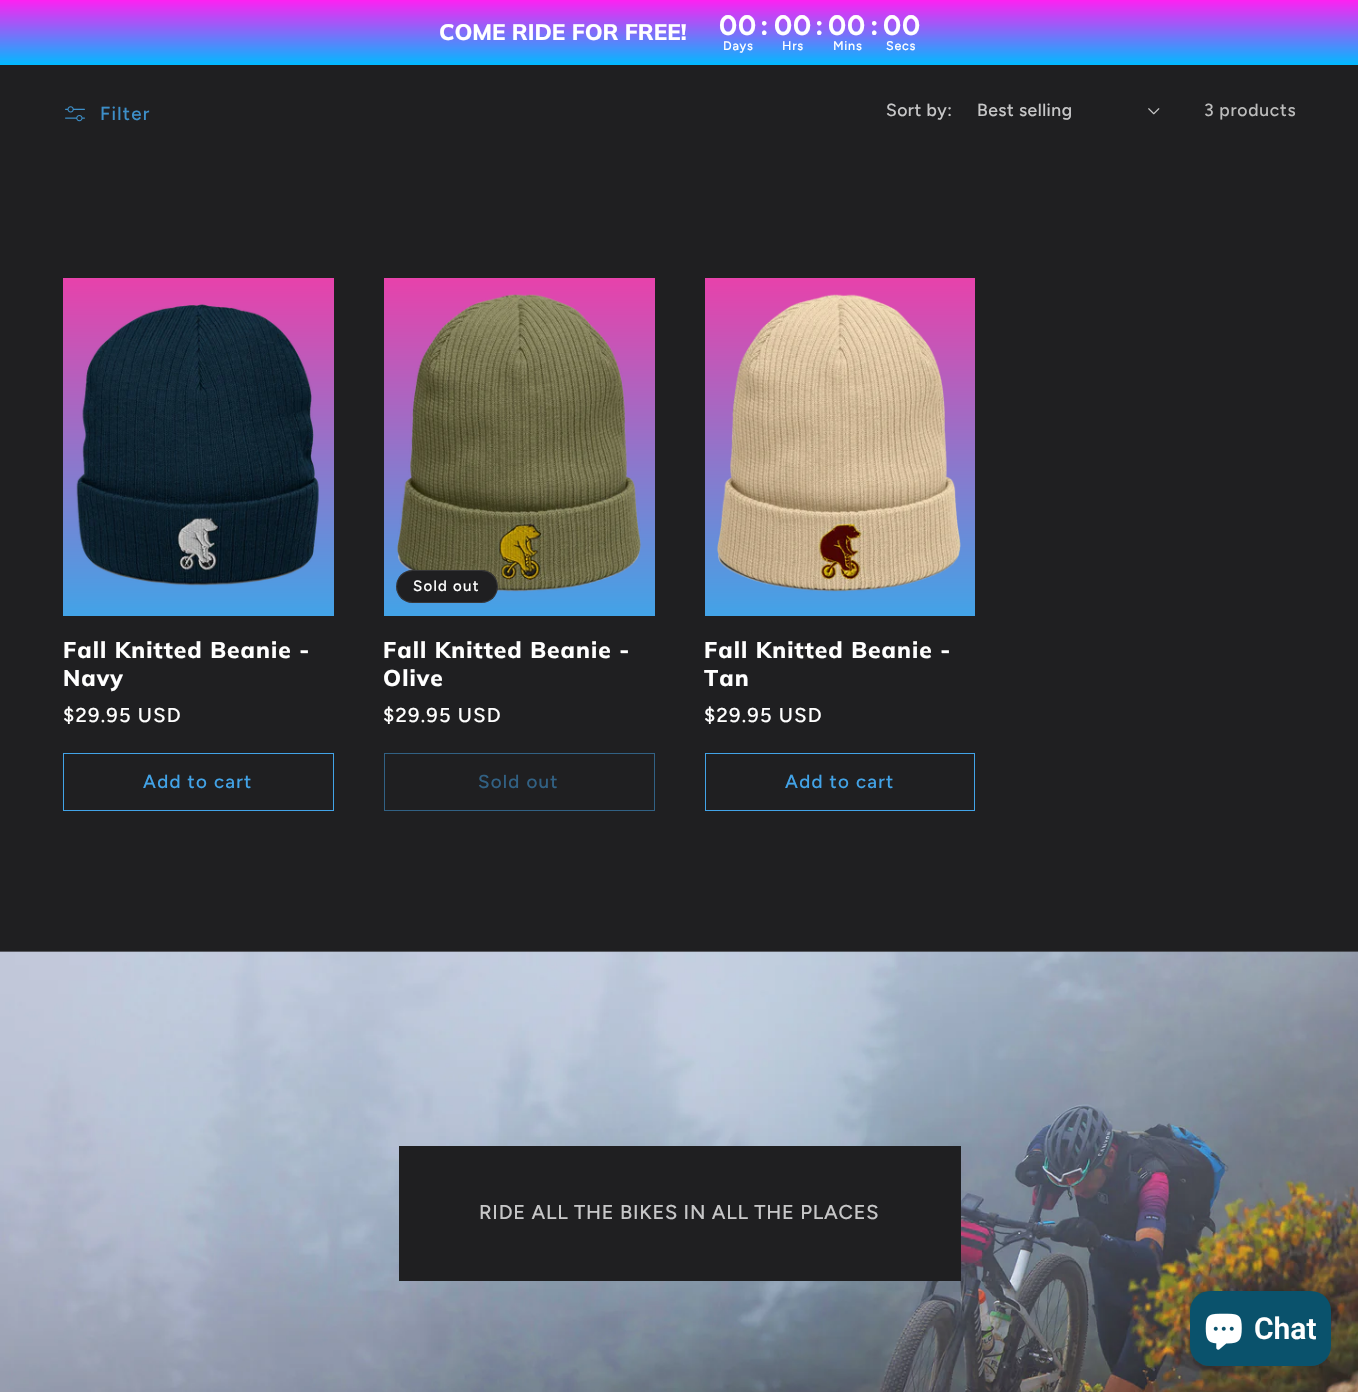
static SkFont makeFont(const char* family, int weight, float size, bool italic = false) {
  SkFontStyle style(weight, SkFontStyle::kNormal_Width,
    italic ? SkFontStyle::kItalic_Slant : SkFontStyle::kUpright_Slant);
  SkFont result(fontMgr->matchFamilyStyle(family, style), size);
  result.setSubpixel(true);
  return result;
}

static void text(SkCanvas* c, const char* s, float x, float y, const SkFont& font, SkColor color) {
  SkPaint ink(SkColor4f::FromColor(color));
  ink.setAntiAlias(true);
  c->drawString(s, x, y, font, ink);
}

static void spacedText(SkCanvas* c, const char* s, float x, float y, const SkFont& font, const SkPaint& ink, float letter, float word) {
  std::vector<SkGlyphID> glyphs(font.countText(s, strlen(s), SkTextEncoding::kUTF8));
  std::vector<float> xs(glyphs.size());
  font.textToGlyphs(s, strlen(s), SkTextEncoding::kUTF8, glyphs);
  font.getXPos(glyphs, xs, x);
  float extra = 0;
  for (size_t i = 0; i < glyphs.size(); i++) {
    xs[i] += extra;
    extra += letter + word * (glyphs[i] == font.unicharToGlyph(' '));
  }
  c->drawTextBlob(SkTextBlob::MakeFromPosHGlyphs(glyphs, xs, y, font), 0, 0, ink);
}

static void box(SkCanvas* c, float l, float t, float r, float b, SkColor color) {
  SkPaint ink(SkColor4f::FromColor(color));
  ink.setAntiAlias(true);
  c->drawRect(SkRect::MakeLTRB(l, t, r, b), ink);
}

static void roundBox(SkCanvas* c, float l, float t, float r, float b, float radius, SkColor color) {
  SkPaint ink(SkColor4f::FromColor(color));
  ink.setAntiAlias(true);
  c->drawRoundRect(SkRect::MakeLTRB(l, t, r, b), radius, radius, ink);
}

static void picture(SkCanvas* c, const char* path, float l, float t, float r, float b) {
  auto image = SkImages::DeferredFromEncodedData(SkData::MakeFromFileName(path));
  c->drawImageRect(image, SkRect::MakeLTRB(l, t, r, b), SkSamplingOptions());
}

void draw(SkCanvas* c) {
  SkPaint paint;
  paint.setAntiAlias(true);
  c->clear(0xff1f1f21);
  {
    const SkColor colors[] = {0xffff20f2, 0xff00baff};
    const float stops[] = {0, 1};
    const SkPoint ends[] = {{679, 0}, {679, 65}};
    paint.setShader(SkGradientShader::MakeLinear(ends, colors, stops, 2, SkTileMode::kClamp));
    paint.setAlpha(255);
  }
  c->drawRect(SkRect::MakeLTRB(0, 0, 1358, 65), paint);
  SkFont face1 = makeFont("Muli", 800, 22.5f);
  text(c, "COME RIDE FOR FREE!", 439, 40, face1, 0xffffffff);
  SkFont face2 = makeFont("Figtree", 700, 28);
  paint.setShader(nullptr);
  paint.setColor(0xffffffff);
  spacedText(c, "00", 719, 35, face2, paint, 0.75f, 0);
  spacedText(c, ":", 760, 35, face2, paint, 0.75f, 0);
  spacedText(c, "00", 774, 35, face2, paint, 0.75f, 0);
  spacedText(c, ":", 815, 35, face2, paint, 0.75f, 0);
  spacedText(c, "00", 828, 35, face2, paint, 0.75f, 0);
  spacedText(c, ":", 870, 35, face2, paint, 0.75f, 0);
  spacedText(c, "00", 883, 35, face2, paint, 0.75f, 0);
  SkFont face3 = makeFont("Figtree", 500, 12.5f);
  spacedText(c, "Days", 723, 50, face3, paint, 0.75f, 0);
  spacedText(c, "Hrs", 782, 50, face3, paint, 0.75f, 0);
  spacedText(c, "Mins", 833, 50, face3, paint, 0.75f, 0);
  spacedText(c, "Secs", 886, 50, face3, paint, 0.75f, 0);
  picture(c, "img_01.png", 65, 106, 85, 122);
  SkFont face4 = makeFont("Figtree", 500, 18.75f);
  paint.setColor(0xff3d8fc9);
  spacedText(c, "Filter", 100, 120, face4, paint, 1.25f, 0);
  SkFont face5 = makeFont("Figtree", 500, 17.5f);
  paint.setColor(0xffc7c7c8);
  spacedText(c, "Sort by:", 886, 116, face5, paint, 0.5f, 0);
  spacedText(c, "Best selling", 977, 116, face5, paint, 0.5f, 0);
  picture(c, "img_02.png", 1148, 108, 1160, 115);
  paint.setColor(0xffbcbcbc);
  spacedText(c, "3 products", 1204, 116, face5, paint, 0.75f, 0);
  {
    const SkColor colors[] = {0xffe742ab, 0xff42a3e7};
    const float stops[] = {0, 1};
    const SkPoint ends[] = {{198, 278}, {198, 616}};
    paint.setShader(SkGradientShader::MakeLinear(ends, colors, stops, 2, SkTileMode::kClamp));
    paint.setAlpha(255);
  }
  c->drawRect(SkRect::MakeLTRB(63, 278, 334, 616), paint);
  picture(c, "img_03.png", 76, 304, 319, 586);
  SkFont face6 = makeFont("Muli", 800, 22.75f);
  paint.setShader(nullptr);
  paint.setColor(0xffffffff);
  spacedText(c, "Fall Knitted Beanie -", 63, 658, face6, paint, 1.05f, 0);
  spacedText(c, "Navy", 63, 686, face6, paint, 1.05f, 0);
  SkFont face7 = makeFont("Figtree", 500, 20);
  spacedText(c, "$29.95 USD", 63, 722, face7, paint, 1.25f, 0);
  paint.setStyle(SkPaint::kStroke_Style);
  paint.setStrokeWidth(1);
  paint.setColor(0xff42a3e7);
  c->drawRect(SkRect::MakeLTRB(63.5f, 753.5f, 333.5f, 810.5f), paint);
  paint.setStyle(SkPaint::kFill_Style);
  spacedText(c, "Add to cart", 143, 788, face4, paint, 1.25f, 0);
  {
    const SkColor colors[] = {0xffe742ab, 0xff42a3e7};
    const float stops[] = {0, 1};
    const SkPoint ends[] = {{519, 278}, {519, 616}};
    paint.setShader(SkGradientShader::MakeLinear(ends, colors, stops, 2, SkTileMode::kClamp));
    paint.setAlpha(255);
  }
  c->drawRect(SkRect::MakeLTRB(384, 278, 655, 616), paint);
  picture(c, "img_04.png", 397, 294, 641, 592);
  roundBox(c, 396, 570, 498, 603, 16.5f, 0xff1f1f21);
  paint.setStyle(SkPaint::kStroke_Style);
  paint.setShader(nullptr);
  paint.setColor(0x1affffff);
  c->drawRoundRect(SkRect::MakeLTRB(396.5f, 570.5f, 497.5f, 602.5f), 16, 16, paint);
  SkFont face8 = makeFont("Figtree", 500, 15);
  paint.setStyle(SkPaint::kFill_Style);
  paint.setColor(0xffffffff);
  spacedText(c, "Sold out", 413, 591, face8, paint, 1.25f, 0);
  spacedText(c, "Fall Knitted Beanie -", 383, 658, face6, paint, 1.05f, 0);
  spacedText(c, "Olive", 383, 686, face6, paint, 1.05f, 0);
  spacedText(c, "$29.95 USD", 383, 722, face7, paint, 1.25f, 0);
  paint.setStyle(SkPaint::kStroke_Style);
  paint.setColor(0xff316184);
  c->drawRect(SkRect::MakeLTRB(384.5f, 753.5f, 654.5f, 810.5f), paint);
  paint.setStyle(SkPaint::kFill_Style);
  spacedText(c, "Sold out", 478, 788, face4, paint, 1.25f, 0);
  {
    const SkColor colors[] = {0xffe742ab, 0xff42a3e7};
    const float stops[] = {0, 1};
    const SkPoint ends[] = {{840, 278}, {840, 616}};
    paint.setShader(SkGradientShader::MakeLinear(ends, colors, stops, 2, SkTileMode::kClamp));
    paint.setAlpha(255);
  }
  c->drawRect(SkRect::MakeLTRB(705, 278, 975, 616), paint);
  picture(c, "img_05.png", 717, 294, 961, 592);
  paint.setShader(nullptr);
  paint.setColor(0xffffffff);
  spacedText(c, "Fall Knitted Beanie -", 704, 658, face6, paint, 1.05f, 0);
  spacedText(c, "Tan", 704, 686, face6, paint, 1.05f, 0);
  spacedText(c, "$29.95 USD", 704, 722, face7, paint, 1.25f, 0);
  paint.setStyle(SkPaint::kStroke_Style);
  paint.setColor(0xff42a3e7);
  c->drawRect(SkRect::MakeLTRB(705.5f, 753.5f, 974.5f, 810.5f), paint);
  paint.setStyle(SkPaint::kFill_Style);
  spacedText(c, "Add to cart", 785, 788, face4, paint, 1.25f, 0);
  box(c, 0, 951, 1358, 952, 0xff353537);
  picture(c, "img_06.png", 0, 951, 1358, 1392);
  box(c, 399, 1146, 961, 1281, 0xff1f1f21);
  paint.setColor(0xffc7c7c8);
  spacedText(c, "RIDE ALL THE BIKES IN ALL THE PLACES", 479, 1219, face7, paint, 0.75f, 0);
  paint.setColor(0x26000000);
  paint.setMaskFilter(SkMaskFilter::MakeBlur(kNormal_SkBlurStyle, 3));
  c->drawRoundRect(SkRect::MakeLTRB(1190, 1291, 1331, 1366), 20, 20, paint);
  paint.setMaskFilter(nullptr);
  roundBox(c, 1190, 1291, 1331, 1366, 20, 0xff0a526c);
  picture(c, "img_07.png", 1205, 1313, 1242, 1350);
  SkFont face9 = makeFont("Roboto", 600, 30);
  text(c, "Chat", 1254, 1339, face9, 0xffffffff);
}
